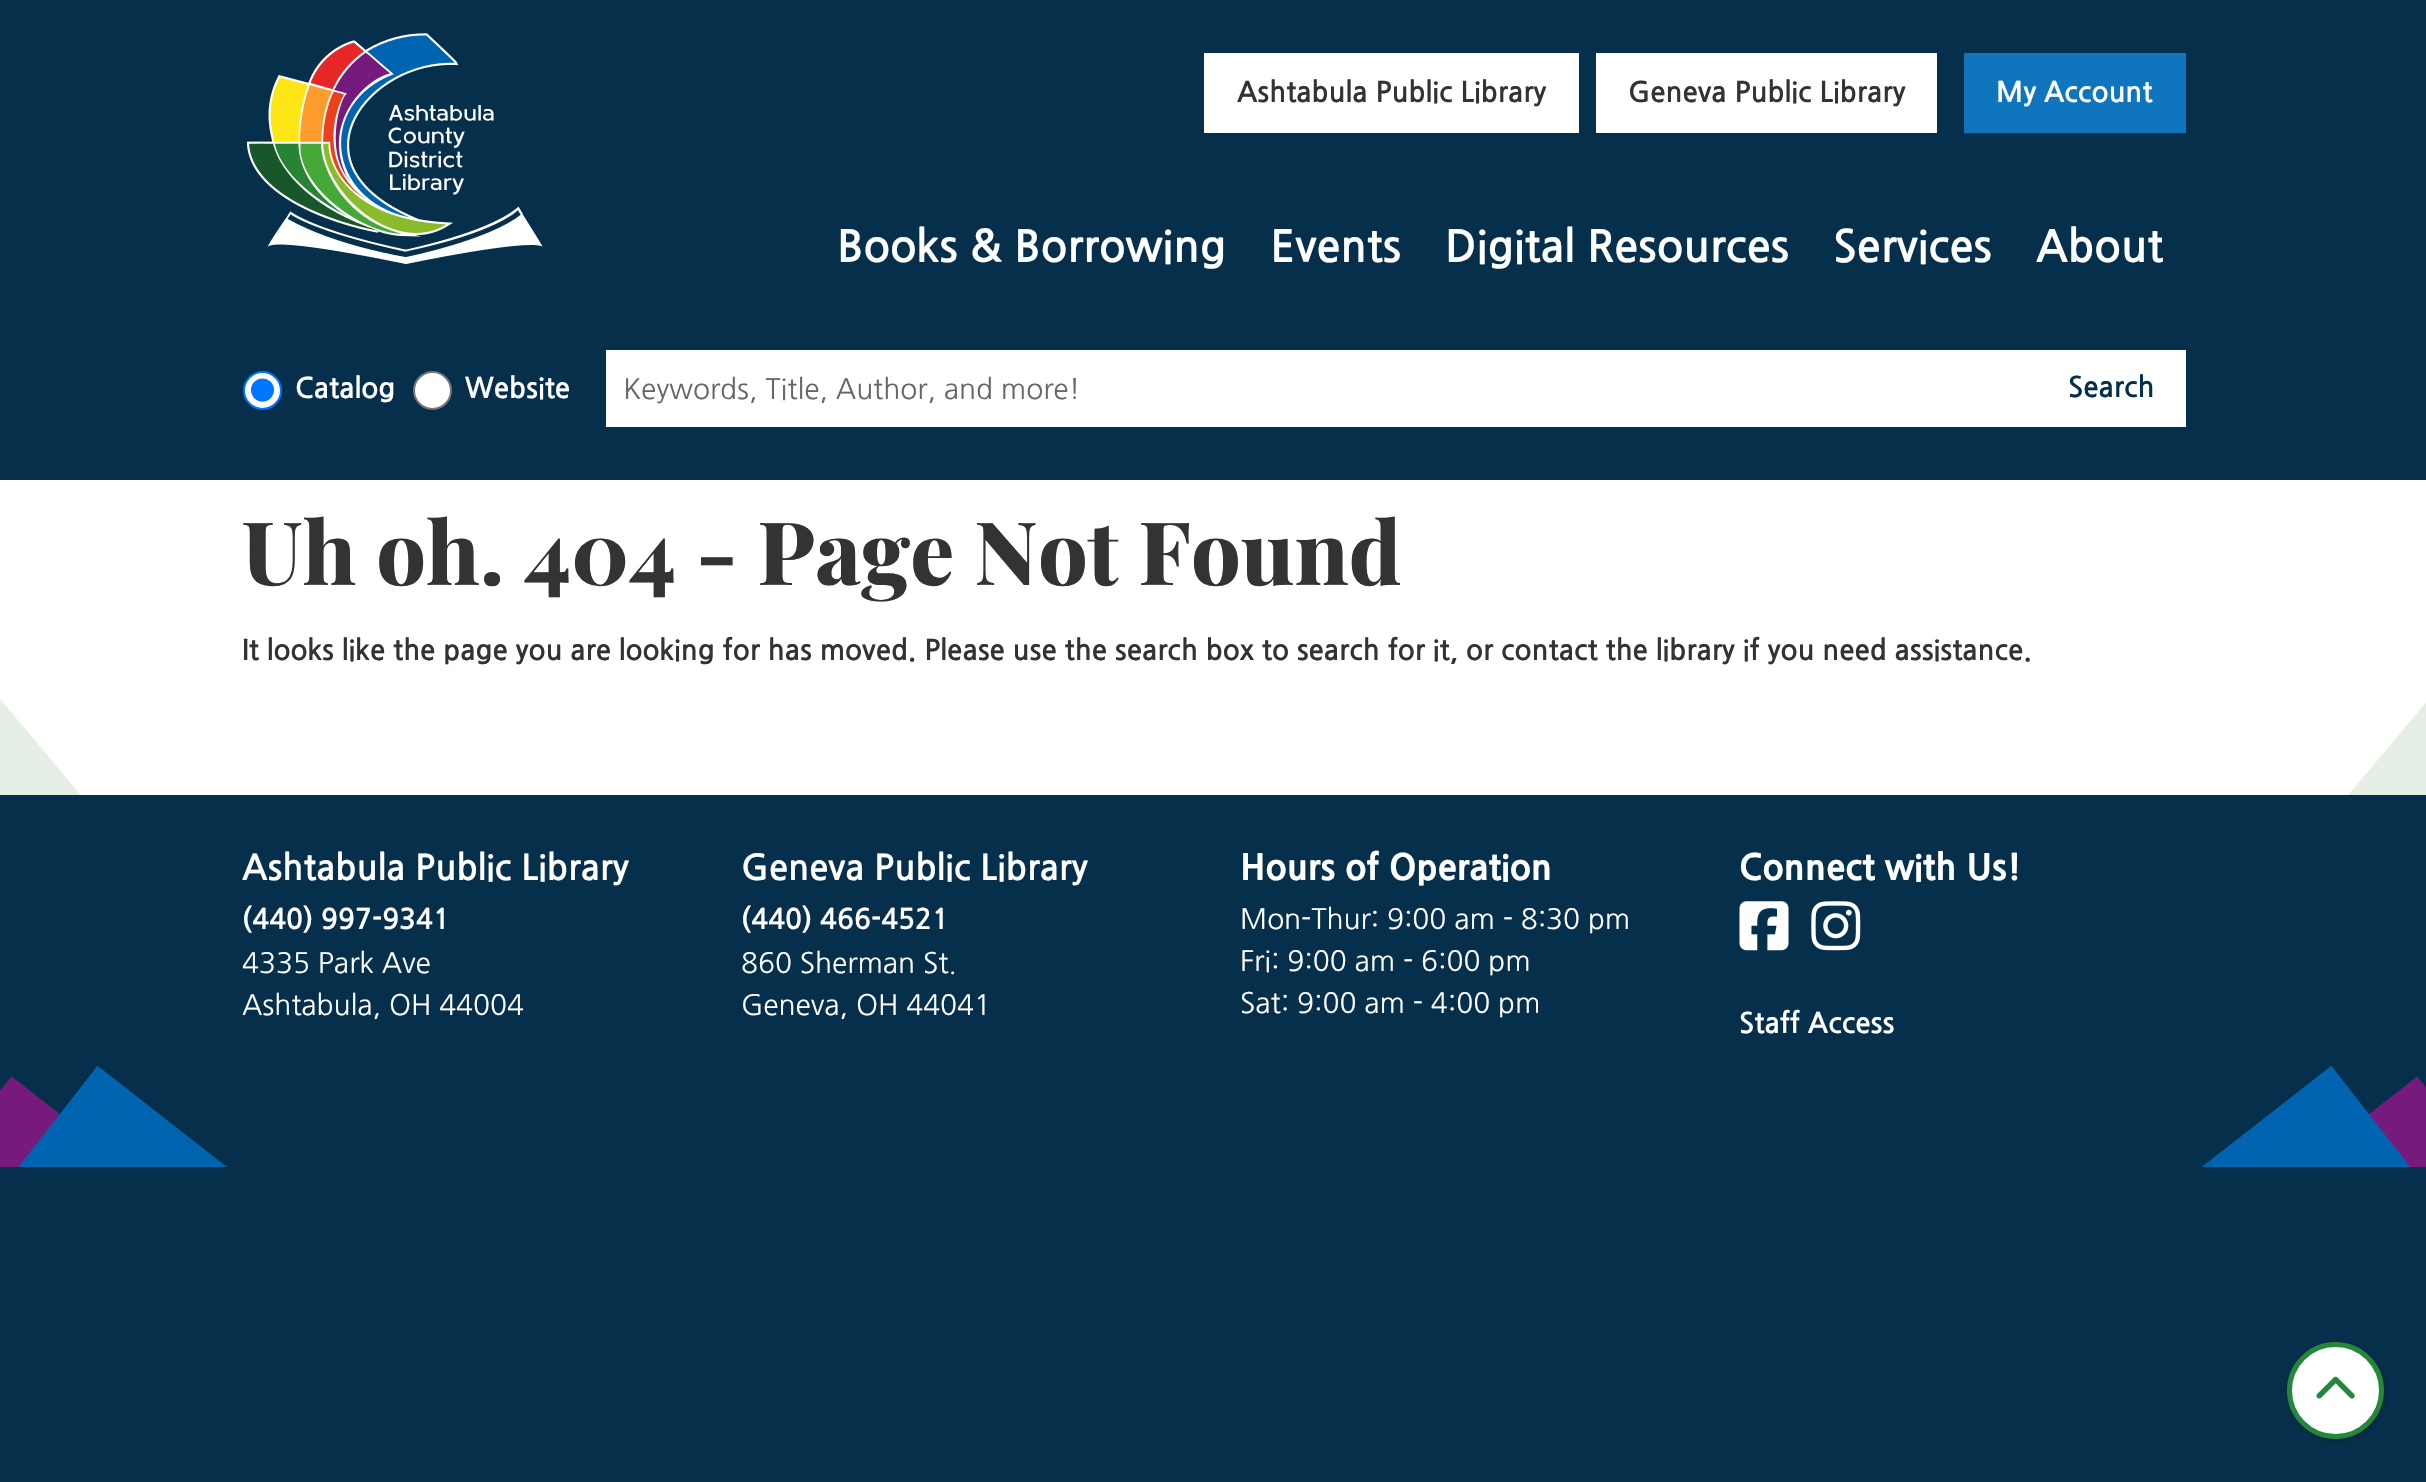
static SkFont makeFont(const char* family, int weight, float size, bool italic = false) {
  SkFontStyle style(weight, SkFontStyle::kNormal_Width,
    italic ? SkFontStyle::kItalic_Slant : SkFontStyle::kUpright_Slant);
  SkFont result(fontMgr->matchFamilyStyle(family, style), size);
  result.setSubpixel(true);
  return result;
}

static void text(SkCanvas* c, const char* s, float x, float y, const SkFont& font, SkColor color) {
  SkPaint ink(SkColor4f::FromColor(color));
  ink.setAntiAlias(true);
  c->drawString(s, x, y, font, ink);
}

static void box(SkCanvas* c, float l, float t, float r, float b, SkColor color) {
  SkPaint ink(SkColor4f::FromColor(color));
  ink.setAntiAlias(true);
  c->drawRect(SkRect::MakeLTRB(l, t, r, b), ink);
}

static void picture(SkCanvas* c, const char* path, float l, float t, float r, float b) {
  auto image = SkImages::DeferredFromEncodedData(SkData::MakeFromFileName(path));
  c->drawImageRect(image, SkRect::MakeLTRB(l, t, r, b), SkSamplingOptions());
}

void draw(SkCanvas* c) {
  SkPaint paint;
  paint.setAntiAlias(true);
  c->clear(0xff062f4b);
  box(c, 0, 480, 2426, 795, 0xffffffff);
  picture(c, "img_01.png", 247, 33, 543, 264);
  box(c, 1204, 53, 1579, 133, 0xffffffff);
  SkFont face1 = makeFont("NanumGothic", 700, 28);
  text(c, "Ashtabula Public Library", 1237, 102, face1, 0xff333333);
  box(c, 1596, 53, 1937, 133, 0xffffffff);
  text(c, "Geneva Public Library", 1628, 102, face1, 0xff333333);
  box(c, 1964, 53, 2186, 133, 0xff0f75bd);
  text(c, "My Account", 1996, 102, face1, 0xffffffff);
  SkFont face2 = makeFont("NanumGothic", 700, 43.75f);
  text(c, "Books & Borrowing", 837, 262, face2, 0xffffffff);
  text(c, "Events", 1270, 262, face2, 0xffffffff);
  text(c, "Digital Resources", 1445, 262, face2, 0xffffffff);
  text(c, "Services", 1833, 262, face2, 0xffffffff);
  text(c, "About", 2036, 262, face2, 0xffffffff);
  paint.setColor(0xffffffff);
  c->drawCircle(262.5f, 390.5f, 18.5f, paint);
  paint.setStyle(SkPaint::kStroke_Style);
  paint.setStrokeWidth(2);
  paint.setColor(0xff0075ff);
  c->drawCircle(262.5f, 390.5f, 18.5f, paint);
  paint.setStyle(SkPaint::kFill_Style);
  c->drawCircle(262.5f, 390, 11.5f, paint);
  text(c, "Catalog", 295, 398, face1, 0xffffffff);
  paint.setColor(0xffffffff);
  c->drawCircle(432.5f, 390.5f, 18.5f, paint);
  paint.setStyle(SkPaint::kStroke_Style);
  paint.setColor(0xff767676);
  c->drawCircle(432.5f, 390.5f, 18.5f, paint);
  text(c, "Website", 465, 398, face1, 0xffffffff);
  box(c, 606, 350, 2186, 427, 0xffffffff);
  SkFont face3 = makeFont("NanumGothic", 400, 28);
  text(c, "Keywords, Title, Author, and more!", 623, 399, face3, 0xff666666);
  text(c, "Search", 2068, 397, face1, 0xff062f4b);
  picture(c, "img_02.png", 2348, 703, 2426, 795);
  picture(c, "img_03.png", 0, 699, 81, 795);
  SkFont face4 = makeFont("Playfair Display", 800, 87.5f);
  text(c, "Uh oh. 404 - Page Not Found", 242, 585, face4, 0xff333333);
  text(c, "It looks like the page you are looking for has moved. Please use the search box to search for it, or contact the library if you need assistance.", 242, 660, face1, 0xff333333);
  picture(c, "img_04.png", 0, 1066, 2426, 1167);
  SkFont face5 = makeFont("NanumGothic", 700, 35);
  text(c, "Ashtabula Public Library", 242, 880, face5, 0xffffffff);
  text(c, "(440) 997-9341", 242, 929, face1, 0xffffffff);
  text(c, "4335 Park Ave", 242, 973, face3, 0xffffffff);
  text(c, "Ashtabula, OH 44004", 242, 1015, face3, 0xffffffff);
  text(c, "Geneva Public Library", 741, 880, face5, 0xffffffff);
  text(c, "(440) 466-4521", 741, 929, face1, 0xffffffff);
  text(c, "860 Sherman St.", 741, 973, face3, 0xffffffff);
  text(c, "Geneva, OH 44041", 741, 1015, face3, 0xffffffff);
  SkFont face6 = makeFont("NanumGothic", 800, 35);
  text(c, "Hours of Operation", 1240, 880, face6, 0xffffffff);
  text(c, "Mon-Thur: 9:00 am - 8:30 pm", 1240, 929, face3, 0xffffffff);
  text(c, "Fri: 9:00 am - 6:00 pm", 1240, 971, face3, 0xffffffff);
  text(c, "Sat: 9:00 am - 4:00 pm", 1240, 1013, face3, 0xffffffff);
  text(c, "Connect with Us!", 1739, 880, face6, 0xffffffff);
  picture(c, "img_05.png", 1739, 901, 1789, 951);
  picture(c, "img_06.png", 1811, 901, 1861, 951);
  text(c, "Staff Access", 1739, 1033, face1, 0xffffffff);
  paint.setStyle(SkPaint::kFill_Style);
  paint.setColor(0x40000000);
  paint.setMaskFilter(SkMaskFilter::MakeBlur(kNormal_SkBlurStyle, 2.5f));
  c->drawRoundRect(SkRect::MakeLTRB(2289, 1344, 2385, 1440), 48, 48, paint);
  paint.setMaskFilter(nullptr);
  paint.setColor(0xffffffff);
  c->drawCircle(2335.5f, 1390.5f, 46, paint);
  paint.setStyle(SkPaint::kStroke_Style);
  paint.setStrokeWidth(5);
  paint.setColor(0xff25873a);
  c->drawCircle(2335.5f, 1390.5f, 46, paint);
  picture(c, "img_07.png", 2316, 1376, 2355, 1399);
}
